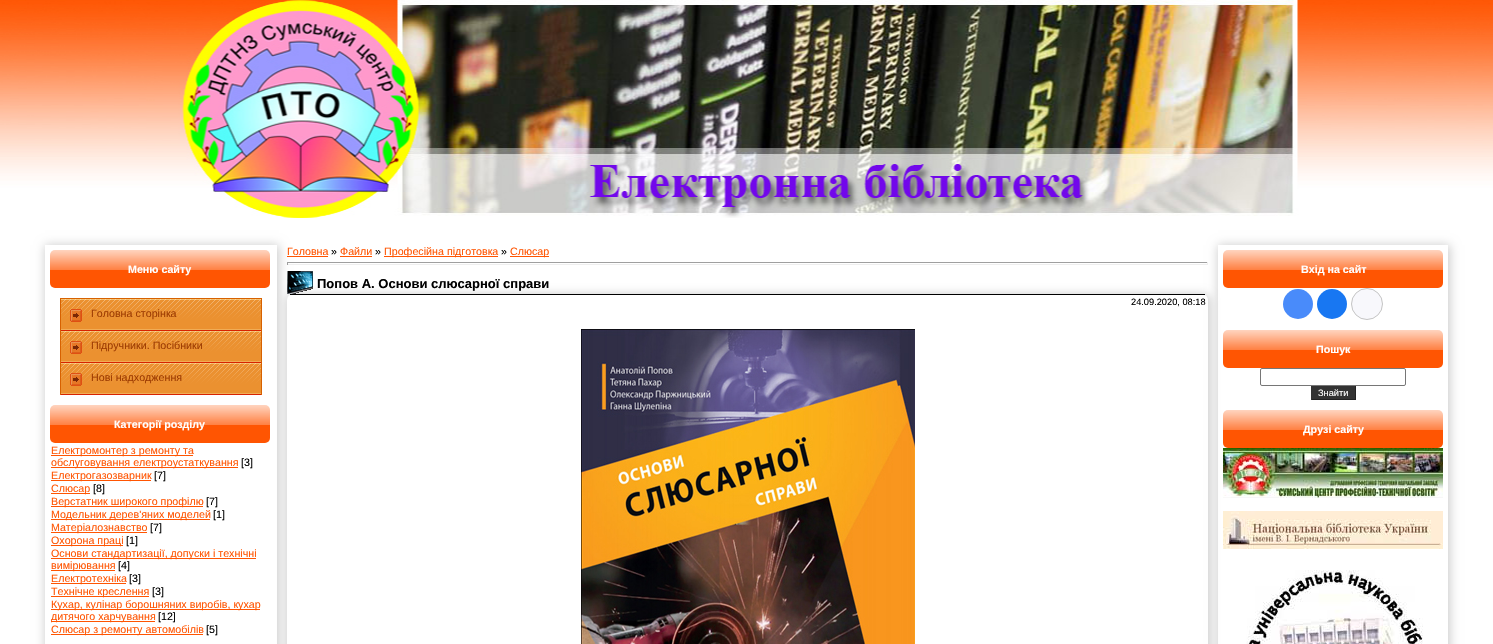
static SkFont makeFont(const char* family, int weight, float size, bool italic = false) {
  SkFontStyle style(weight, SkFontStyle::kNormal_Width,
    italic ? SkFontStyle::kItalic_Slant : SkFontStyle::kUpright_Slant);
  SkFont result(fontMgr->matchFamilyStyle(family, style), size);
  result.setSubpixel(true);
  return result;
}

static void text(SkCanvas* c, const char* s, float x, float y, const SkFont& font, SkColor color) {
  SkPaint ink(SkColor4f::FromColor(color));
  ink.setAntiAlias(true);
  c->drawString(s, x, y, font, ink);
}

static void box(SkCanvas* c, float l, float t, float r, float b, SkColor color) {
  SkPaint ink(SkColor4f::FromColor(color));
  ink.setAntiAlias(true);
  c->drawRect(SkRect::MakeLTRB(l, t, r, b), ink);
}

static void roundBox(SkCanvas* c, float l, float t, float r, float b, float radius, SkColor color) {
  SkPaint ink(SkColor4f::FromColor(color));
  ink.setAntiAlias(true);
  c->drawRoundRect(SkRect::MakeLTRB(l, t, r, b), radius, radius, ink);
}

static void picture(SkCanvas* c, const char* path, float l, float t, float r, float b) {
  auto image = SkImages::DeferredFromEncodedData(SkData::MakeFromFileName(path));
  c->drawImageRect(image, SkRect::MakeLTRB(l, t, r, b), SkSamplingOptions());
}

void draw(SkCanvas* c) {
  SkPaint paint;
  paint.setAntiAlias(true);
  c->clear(0xffffffff);
  picture(c, "img_01.png", 0, 0, 1493, 218);
  c->save();
  c->clipPath(SkPathBuilder(SkPathFillType::kEvenOdd).moveTo(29, 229).lineTo(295, 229).lineTo(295, 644).lineTo(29, 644).close().moveTo(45, 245).lineTo(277, 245).lineTo(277, 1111).lineTo(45, 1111).close().detach(), true);
  paint.setColor(0x33000000);
  paint.setMaskFilter(SkMaskFilter::MakeBlur(kNormal_SkBlurStyle, 5));
  c->drawRect(SkRect::MakeLTRB(45, 245, 279, 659), paint);
  paint.setMaskFilter(nullptr);
  c->restore();
  picture(c, "img_02.png", 50, 250, 270, 288);
  SkFont face1 = makeFont("Liberation Sans", 700, 10.7f);
  text(c, "Меню сайту", 128, 273, face1, 0xffffffff);
  box(c, 60, 298, 262, 299, 0xffd76100);
  box(c, 261, 298, 262, 395, 0xffd76100);
  box(c, 60, 298, 61, 395, 0xffd76100);
  picture(c, "img_03.png", 61, 299, 261, 331);
  SkFont face2 = makeFont("Liberation Sans", 400, 10.7f);
  text(c, "Головна сторінка", 91, 317, face2, 0xff9e3c02);
  picture(c, "img_03.png", 61, 331, 261, 363);
  text(c, "Підручники. Посібники", 91, 349, face2, 0xff9e3c02);
  picture(c, "img_03.png", 61, 363, 261, 395);
  text(c, "Нові надходження", 91, 381, face2, 0xff9e3c02);
  picture(c, "img_02.png", 50, 405, 270, 443);
  text(c, "Категорії розділу", 114, 428, face1, 0xffffffff);
  box(c, 51, 455, 193, 456, 0xffff5502);
  text(c, "Електромонтер з ремонту та", 51, 454, face2, 0xffff5502);
  box(c, 51, 467, 238, 468, 0xffff5502);
  text(c, "обслуговування електроустаткування", 51, 466, face2, 0xffff5502);
  text(c, "[3]", 241, 466, face2, 0xff000000);
  box(c, 51, 480, 151, 481, 0xffff5502);
  text(c, "Електрогазозварник", 51, 479, face2, 0xffff5502);
  text(c, "[7]", 154, 479, face2, 0xff000000);
  box(c, 51, 493, 90, 494, 0xffff5502);
  text(c, "Слюсар", 51, 492, face2, 0xffff5502);
  text(c, "[8]", 93, 492, face2, 0xff000000);
  box(c, 51, 506, 203, 507, 0xffff5502);
  text(c, "Верстатник широкого профілю", 51, 505, face2, 0xffff5502);
  text(c, "[7]", 206, 505, face2, 0xff000000);
  box(c, 51, 519, 210, 520, 0xffff5502);
  text(c, "Модельник дерев'яних моделей", 51, 518, face2, 0xffff5502);
  text(c, "[1]", 213, 518, face2, 0xff000000);
  box(c, 51, 532, 147, 533, 0xffff5502);
  text(c, "Матеріалознавство", 51, 531, face2, 0xffff5502);
  text(c, "[7]", 150, 531, face2, 0xff000000);
  box(c, 51, 545, 123, 546, 0xffff5502);
  text(c, "Охорона праці", 51, 544, face2, 0xffff5502);
  text(c, "[1]", 126, 544, face2, 0xff000000);
  box(c, 51, 558, 256, 559, 0xffff5502);
  text(c, "Основи стандартизації, допуски і технічні", 51, 557, face2, 0xffff5502);
  box(c, 51, 570, 115, 571, 0xffff5502);
  text(c, "вимірювання", 51, 569, face2, 0xffff5502);
  text(c, "[4]", 118, 569, face2, 0xff000000);
  box(c, 51, 583, 126, 584, 0xffff5502);
  text(c, "Електротехніка", 51, 582, face2, 0xffff5502);
  text(c, "[3]", 129, 582, face2, 0xff000000);
  box(c, 51, 596, 149, 597, 0xffff5502);
  text(c, "Технічне креслення", 51, 595, face2, 0xffff5502);
  text(c, "[3]", 152, 595, face2, 0xff000000);
  box(c, 51, 609, 260, 610, 0xffff5502);
  text(c, "Кухар, кулінар борошняних виробів, кухар", 51, 608, face2, 0xffff5502);
  box(c, 51, 621, 155, 622, 0xffff5502);
  text(c, "дитячого харчування", 51, 620, face2, 0xffff5502);
  text(c, "[12]", 158, 620, face2, 0xff000000);
  box(c, 51, 634, 203, 635, 0xffff5502);
  text(c, "Слюсар з ремонту автомобілів", 51, 633, face2, 0xffff5502);
  text(c, "[5]", 206, 633, face2, 0xff000000);
  text(c, "Головна", 287, 255, face2, 0xffff5502);
  box(c, 287, 256, 328, 257, 0xffff5502);
  text(c, "»", 331, 255, face2, 0xff000000);
  text(c, "Файли", 340, 255, face2, 0xffff5502);
  box(c, 340, 256, 372, 257, 0xffff5502);
  text(c, "»", 375, 255, face2, 0xff000000);
  box(c, 384, 256, 498, 257, 0xffff5502);
  text(c, "Професійна підготовка", 384, 255, face2, 0xffff5502);
  text(c, "»", 501, 255, face2, 0xff000000);
  box(c, 510, 256, 549, 257, 0xffff5502);
  text(c, "Слюсар", 510, 255, face2, 0xffff5502);
  picture(c, "img_04.png", 287, 271, 313, 294);
  paint.setMaskFilter(SkMaskFilter::MakeBlur(kNormal_SkBlurStyle, 5));
  c->drawRoundRect(SkRect::MakeLTRB(287, 294, 1210, 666), 7, 7, paint);
  paint.setMaskFilter(nullptr);
  roundBox(c, 287, 294, 1208, 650, 6, 0xffffffff);
  box(c, 290, 294, 1205, 295, 0xff000000);
  c->save();
  c->clipPath(SkPathBuilder(SkPathFillType::kEvenOdd).moveTo(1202, 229).lineTo(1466, 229).lineTo(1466, 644).lineTo(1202, 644).close().moveTo(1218, 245).lineTo(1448, 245).lineTo(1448, 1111).lineTo(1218, 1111).close().detach(), true);
  paint.setMaskFilter(SkMaskFilter::MakeBlur(kNormal_SkBlurStyle, 5));
  c->drawRect(SkRect::MakeLTRB(1218, 245, 1450, 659), paint);
  paint.setMaskFilter(nullptr);
  c->restore();
  box(c, 287, 262, 1208, 263, 0xff9f9f9f);
  box(c, 1207, 262, 1208, 265, 0xffeeeeee);
  box(c, 287, 264, 1208, 265, 0xffeeeeee);
  box(c, 287, 262, 288, 265, 0xff9f9f9f);
  SkFont face3 = makeFont("Liberation Sans", 700, 13);
  text(c, "Попов А. Основи слюсарної справи", 317, 288, face3, 0xff000000);
  SkFont face4 = makeFont("Liberation Sans", 400, 9.25f);
  text(c, "24.09.2020, 08:18", 1131, 305, face4, 0xff000000);
  picture(c, "img_05.png", 581, 329, 915, 644);
  picture(c, "img_02.png", 1223, 250, 1443, 288);
  text(c, "Вхід на сайт", 1301, 273, face1, 0xffffffff);
  paint.setColor(0xff498bfa);
  c->drawCircle(1298, 304, 15, paint);
  paint.setColor(0xff1877f2);
  c->drawCircle(1332, 304, 15, paint);
  paint.setColor(0xfff8f8fc);
  c->drawCircle(1367, 304, 15.5f, paint);
  paint.setStyle(SkPaint::kStroke_Style);
  paint.setStrokeWidth(1);
  paint.setColor(0xffc4c4c4);
  c->drawCircle(1367, 304, 15.5f, paint);
  picture(c, "img_02.png", 1223, 330, 1443, 368);
  text(c, "Пошук", 1316, 353, face1, 0xffffffff);
  paint.setColor(0xff767676);
  c->drawRoundRect(SkRect::MakeLTRB(1260.5f, 368.5f, 1405.5f, 385.5f), 1.5f, 1.5f, paint);
  box(c, 1312, 386, 1355, 399, 0xff333333);
  box(c, 1355, 386, 1356, 400, 0xff222222);
  box(c, 1311, 399, 1356, 400, 0xff222222);
  box(c, 1311, 386, 1312, 400, 0xff333333);
  text(c, "Знайти", 1318, 396, face4, 0xffffffff);
  picture(c, "img_02.png", 1223, 410, 1443, 448);
  text(c, "Друзі сайту", 1303, 433, face1, 0xffffffff);
  picture(c, "img_06.png", 1223, 448, 1443, 498);
  picture(c, "img_07.png", 1223, 511, 1443, 549);
  picture(c, "img_08.png", 1246, 570, 1423, 644);
}
